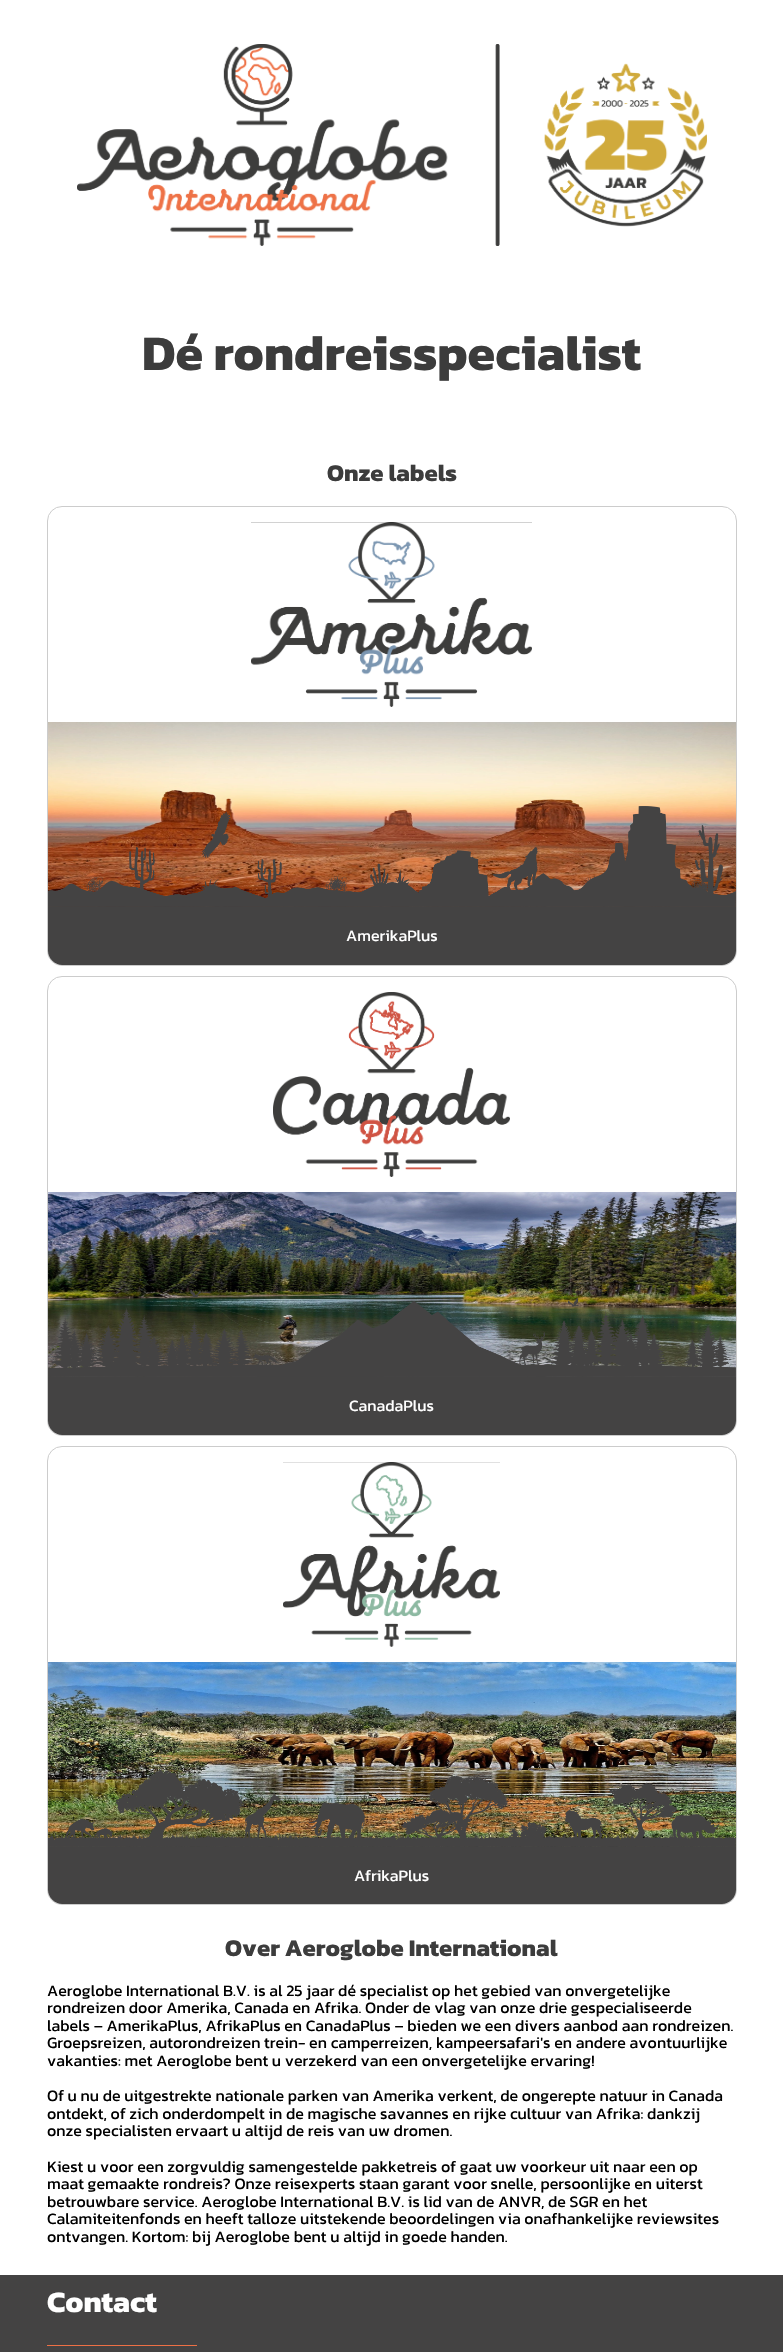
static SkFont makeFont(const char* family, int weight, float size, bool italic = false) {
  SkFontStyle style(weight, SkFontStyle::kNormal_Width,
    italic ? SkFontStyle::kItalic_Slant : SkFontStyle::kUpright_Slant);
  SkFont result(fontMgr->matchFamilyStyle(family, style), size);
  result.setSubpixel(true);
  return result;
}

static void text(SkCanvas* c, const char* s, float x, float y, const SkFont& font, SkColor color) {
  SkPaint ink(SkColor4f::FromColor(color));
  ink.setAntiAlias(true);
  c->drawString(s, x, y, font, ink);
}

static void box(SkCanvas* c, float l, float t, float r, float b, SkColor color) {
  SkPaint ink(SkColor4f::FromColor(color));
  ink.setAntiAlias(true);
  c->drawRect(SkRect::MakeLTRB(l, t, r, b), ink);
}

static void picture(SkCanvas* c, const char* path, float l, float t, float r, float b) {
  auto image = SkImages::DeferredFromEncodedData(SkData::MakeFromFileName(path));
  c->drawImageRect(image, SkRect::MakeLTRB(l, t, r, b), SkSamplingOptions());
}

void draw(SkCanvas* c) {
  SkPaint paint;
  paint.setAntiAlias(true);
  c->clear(0xffffffff);
  picture(c, "img_01.png", 77, 44, 707, 246);
  SkFont face1 = makeFont("Kanit", 700, 50);
  text(c, "Dé rondreisspecialist", 142, 370, face1, 0xff3c3c3c);
  SkFont face2 = makeFont("Kanit", 700, 24);
  text(c, "Onze labels", 327, 481, face2, 0xff3c3c3c);
  paint.setStyle(SkPaint::kStroke_Style);
  paint.setStrokeWidth(1);
  paint.setColor(0xffcccccc);
  c->drawRoundRect(SkRect::MakeLTRB(47.5f, 506.5f, 736.5f, 965.5f), 14.5f, 14.5f, paint);
  picture(c, "img_02.png", 251, 522, 532, 707);
  picture(c, "img_03.png", 48, 722, 736, 907);
  picture(c, "img_04.png", 48, 806, 736, 907);
  paint.setStyle(SkPaint::kFill_Style);
  paint.setColor(0xff444343);
  c->drawPath(SkPathBuilder().moveTo(48, 907).lineTo(736, 907).lineTo(736, 951).cubicTo(736, 958.5f, 729.5f, 965, 722, 965).lineTo(62, 965).cubicTo(54.5f, 965, 48, 958.5f, 48, 951).close().detach(), paint);
  SkFont face3 = makeFont("Kanit", 400, 16);
  text(c, "AmerikaPlus", 346, 941, face3, 0xffffffff);
  paint.setStyle(SkPaint::kStroke_Style);
  paint.setColor(0xffcccccc);
  c->drawRoundRect(SkRect::MakeLTRB(47.5f, 976.5f, 736.5f, 1435.5f), 14.5f, 14.5f, paint);
  picture(c, "img_05.png", 273, 992, 510, 1177);
  picture(c, "img_06.png", 48, 1192, 736, 1377);
  picture(c, "img_07.png", 48, 1289, 736, 1377);
  paint.setStyle(SkPaint::kFill_Style);
  paint.setColor(0xff444343);
  c->drawPath(SkPathBuilder().moveTo(48, 1377).lineTo(736, 1377).lineTo(736, 1421).cubicTo(736, 1428.5f, 729.5f, 1435, 722, 1435).lineTo(62, 1435).cubicTo(54.5f, 1435, 48, 1428.5f, 48, 1421).close().detach(), paint);
  text(c, "CanadaPlus", 349, 1411, face3, 0xffffffff);
  paint.setStyle(SkPaint::kStroke_Style);
  paint.setColor(0xffcccccc);
  c->drawRoundRect(SkRect::MakeLTRB(47.5f, 1446.5f, 736.5f, 1904.5f), 14.5f, 14.5f, paint);
  picture(c, "img_08.png", 283, 1462, 500, 1647);
  picture(c, "img_09.png", 48, 1662, 736, 1847);
  picture(c, "img_10.png", 48, 1770, 736, 1847);
  paint.setStyle(SkPaint::kFill_Style);
  paint.setColor(0xff444343);
  c->drawPath(SkPathBuilder().moveTo(48, 1847).lineTo(736, 1847).lineTo(736, 1890).cubicTo(736, 1897.5f, 729.5f, 1904, 722, 1904).lineTo(62, 1904).cubicTo(54.5f, 1904, 48, 1897.5f, 48, 1890).close().detach(), paint);
  text(c, "AfrikaPlus", 354, 1881, face3, 0xffffffff);
  text(c, "Over Aeroglobe International", 225, 1956, face2, 0xff3c3c3c);
  text(c, "Aeroglobe International B.V. is al 25 jaar dé specialist op het gebied van onvergetelijke", 47, 1996, face3, 0xff000000);
  text(c, "rondreizen door Amerika, Canada en Afrika. Onder de vlag van onze drie gespecialiseerde", 47, 2013, face3, 0xff000000);
  text(c, "labels – AmerikaPlus, AfrikaPlus en CanadaPlus – bieden we een divers aanbod aan rondreizen.", 47, 2031, face3, 0xff000000);
  text(c, "Groepsreizen, autorondreizen trein- en camperreizen, kampeersafari's en andere avontuurlijke", 47, 2048, face3, 0xff000000);
  text(c, "vakanties: met Aeroglobe bent u verzekerd van een onvergetelijke ervaring!", 47, 2066, face3, 0xff000000);
  text(c, "Of u nu de uitgestrekte nationale parken van Amerika verkent, de ongerepte natuur in Canada", 47, 2101, face3, 0xff000000);
  text(c, "ontdekt, of zich onderdompelt in de magische savannes en rijke cultuur van Afrika: dankzij", 47, 2119, face3, 0xff000000);
  text(c, "onze specialisten ervaart u altijd de reis van uw dromen.", 47, 2136, face3, 0xff000000);
  text(c, "Kiest u voor een zorgvuldig samengestelde pakketreis of gaat uw voorkeur uit naar een op", 47, 2172, face3, 0xff000000);
  text(c, "maat gemaakte rondreis? Onze reisexperts staan garant voor snelle, persoonlijke en uiterst", 47, 2189, face3, 0xff000000);
  text(c, "betrouwbare service. Aeroglobe International B.V. is lid van de ANVR, de SGR en het", 47, 2207, face3, 0xff000000);
  text(c, "Calamiteitenfonds en heeft talloze uitstekende beoordelingen via onafhankelijke reviewsites", 47, 2224, face3, 0xff000000);
  text(c, "ontvangen. Kortom: bij Aeroglobe bent u altijd in goede handen.", 47, 2242, face3, 0xff000000);
  box(c, 0, 2275, 783, 2352, 0xff444343);
  box(c, 47, 2345, 197, 2346, 0xffed7045);
  SkFont face4 = makeFont("Kanit", 700, 30);
  text(c, "Contact", 47, 2312, face4, 0xffffffff);
}
